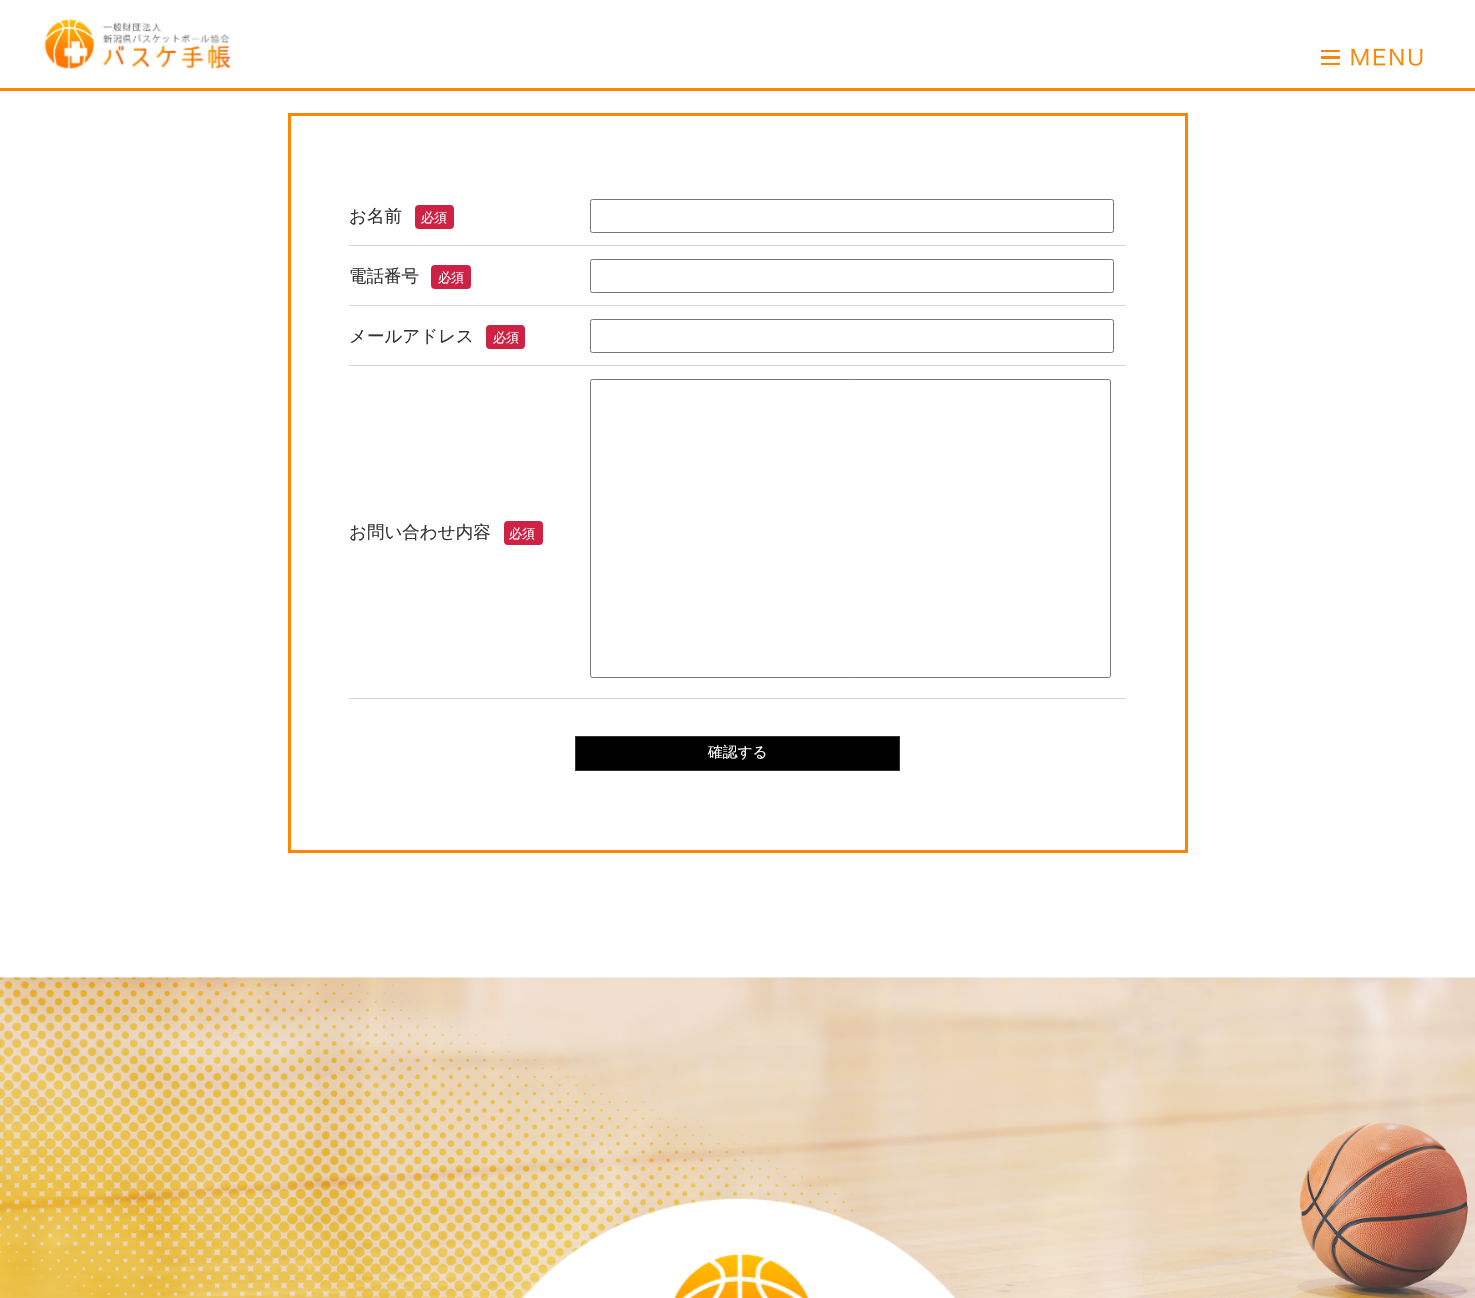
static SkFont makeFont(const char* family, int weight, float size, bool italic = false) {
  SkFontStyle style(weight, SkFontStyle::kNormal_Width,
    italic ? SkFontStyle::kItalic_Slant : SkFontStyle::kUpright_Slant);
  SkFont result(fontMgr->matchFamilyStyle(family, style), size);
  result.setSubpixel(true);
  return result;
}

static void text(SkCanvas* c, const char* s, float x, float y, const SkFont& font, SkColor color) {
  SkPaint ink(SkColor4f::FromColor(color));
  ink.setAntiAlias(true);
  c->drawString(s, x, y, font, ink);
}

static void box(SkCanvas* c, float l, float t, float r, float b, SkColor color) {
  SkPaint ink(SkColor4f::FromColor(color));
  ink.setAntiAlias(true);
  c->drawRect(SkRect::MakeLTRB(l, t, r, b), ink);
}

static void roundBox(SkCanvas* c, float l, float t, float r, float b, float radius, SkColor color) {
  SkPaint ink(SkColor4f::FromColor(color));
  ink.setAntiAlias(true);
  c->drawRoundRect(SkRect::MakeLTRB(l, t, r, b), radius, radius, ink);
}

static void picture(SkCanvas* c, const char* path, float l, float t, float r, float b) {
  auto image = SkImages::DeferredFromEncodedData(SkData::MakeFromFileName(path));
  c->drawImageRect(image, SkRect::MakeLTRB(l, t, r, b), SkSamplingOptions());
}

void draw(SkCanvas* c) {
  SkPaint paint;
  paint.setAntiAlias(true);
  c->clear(0xffffffff);
  box(c, 0, 88, 1475, 91, 0xffff8500);
  picture(c, "img_01.png", 44, 19, 231, 69);
  picture(c, "img_02.png", 1321, 48, 1423, 66);
  paint.setStyle(SkPaint::kStroke_Style);
  paint.setStrokeWidth(3);
  paint.setColor(0xffff8500);
  c->drawRect(SkRect::MakeLTRB(289.5f, 114.5f, 1186.5f, 851.5f), paint);
  box(c, 349, 245, 1126, 246, 0xffd6d6d6);
  paint.setStrokeWidth(1);
  paint.setColor(0xff767676);
  c->drawRoundRect(SkRect::MakeLTRB(590.5f, 199.5f, 1113.5f, 232.5f), 2, 2, paint);
  SkFont face1 = makeFont("WenQuanYi Zen Hei", 500, 17.5f);
  text(c, "お名前", 349, 222, face1, 0xff333333);
  roundBox(c, 415, 205, 454, 229, 4, 0xffce2244);
  SkFont face2 = makeFont("WenQuanYi Zen Hei", 500, 13);
  text(c, "必須", 421, 222, face2, 0xffffffff);
  box(c, 349, 305, 1126, 306, 0xffd6d6d6);
  c->drawRoundRect(SkRect::MakeLTRB(590.5f, 259.5f, 1113.5f, 292.5f), 2, 2, paint);
  text(c, "電話番号", 349, 282, face1, 0xff333333);
  roundBox(c, 431, 265, 471, 289, 4, 0xffce2244);
  text(c, "必須", 438, 282, face2, 0xffffffff);
  box(c, 349, 365, 1126, 366, 0xffd6d6d6);
  c->drawRoundRect(SkRect::MakeLTRB(590.5f, 319.5f, 1113.5f, 352.5f), 2, 2, paint);
  text(c, "メールアドレス", 349, 342, face1, 0xff333333);
  roundBox(c, 486, 325, 525, 349, 4, 0xffce2244);
  text(c, "必須", 493, 342, face2, 0xffffffff);
  box(c, 349, 698, 1126, 699, 0xffd6d6d6);
  c->drawRoundRect(SkRect::MakeLTRB(590.5f, 379.5f, 1110.5f, 677.5f), 2, 2, paint);
  text(c, "お問い合わせ内容", 349, 538, face1, 0xff333333);
  roundBox(c, 504, 521, 543, 545, 4, 0xffce2244);
  text(c, "必須", 509, 538, face2, 0xffffffff);
  paint.setStyle(SkPaint::kFill_Style);
  paint.setColor(0xff000000);
  c->drawRect(SkRect::MakeLTRB(575.5f, 736.5f, 899.5f, 770.5f), paint);
  paint.setStyle(SkPaint::kStroke_Style);
  paint.setColor(0xff333333);
  c->drawRect(SkRect::MakeLTRB(575.5f, 736.5f, 899.5f, 770.5f), paint);
  SkFont face3 = makeFont("WenQuanYi Zen Hei", 500, 14.75f);
  text(c, "確認する", 708, 757, face3, 0xffffffff);
  picture(c, "img_03.png", 0, 977, 1475, 1298);
  picture(c, "img_04.png", 522, 1198, 956, 1298);
  picture(c, "img_05.png", 674, 1253, 809, 1298);
}
